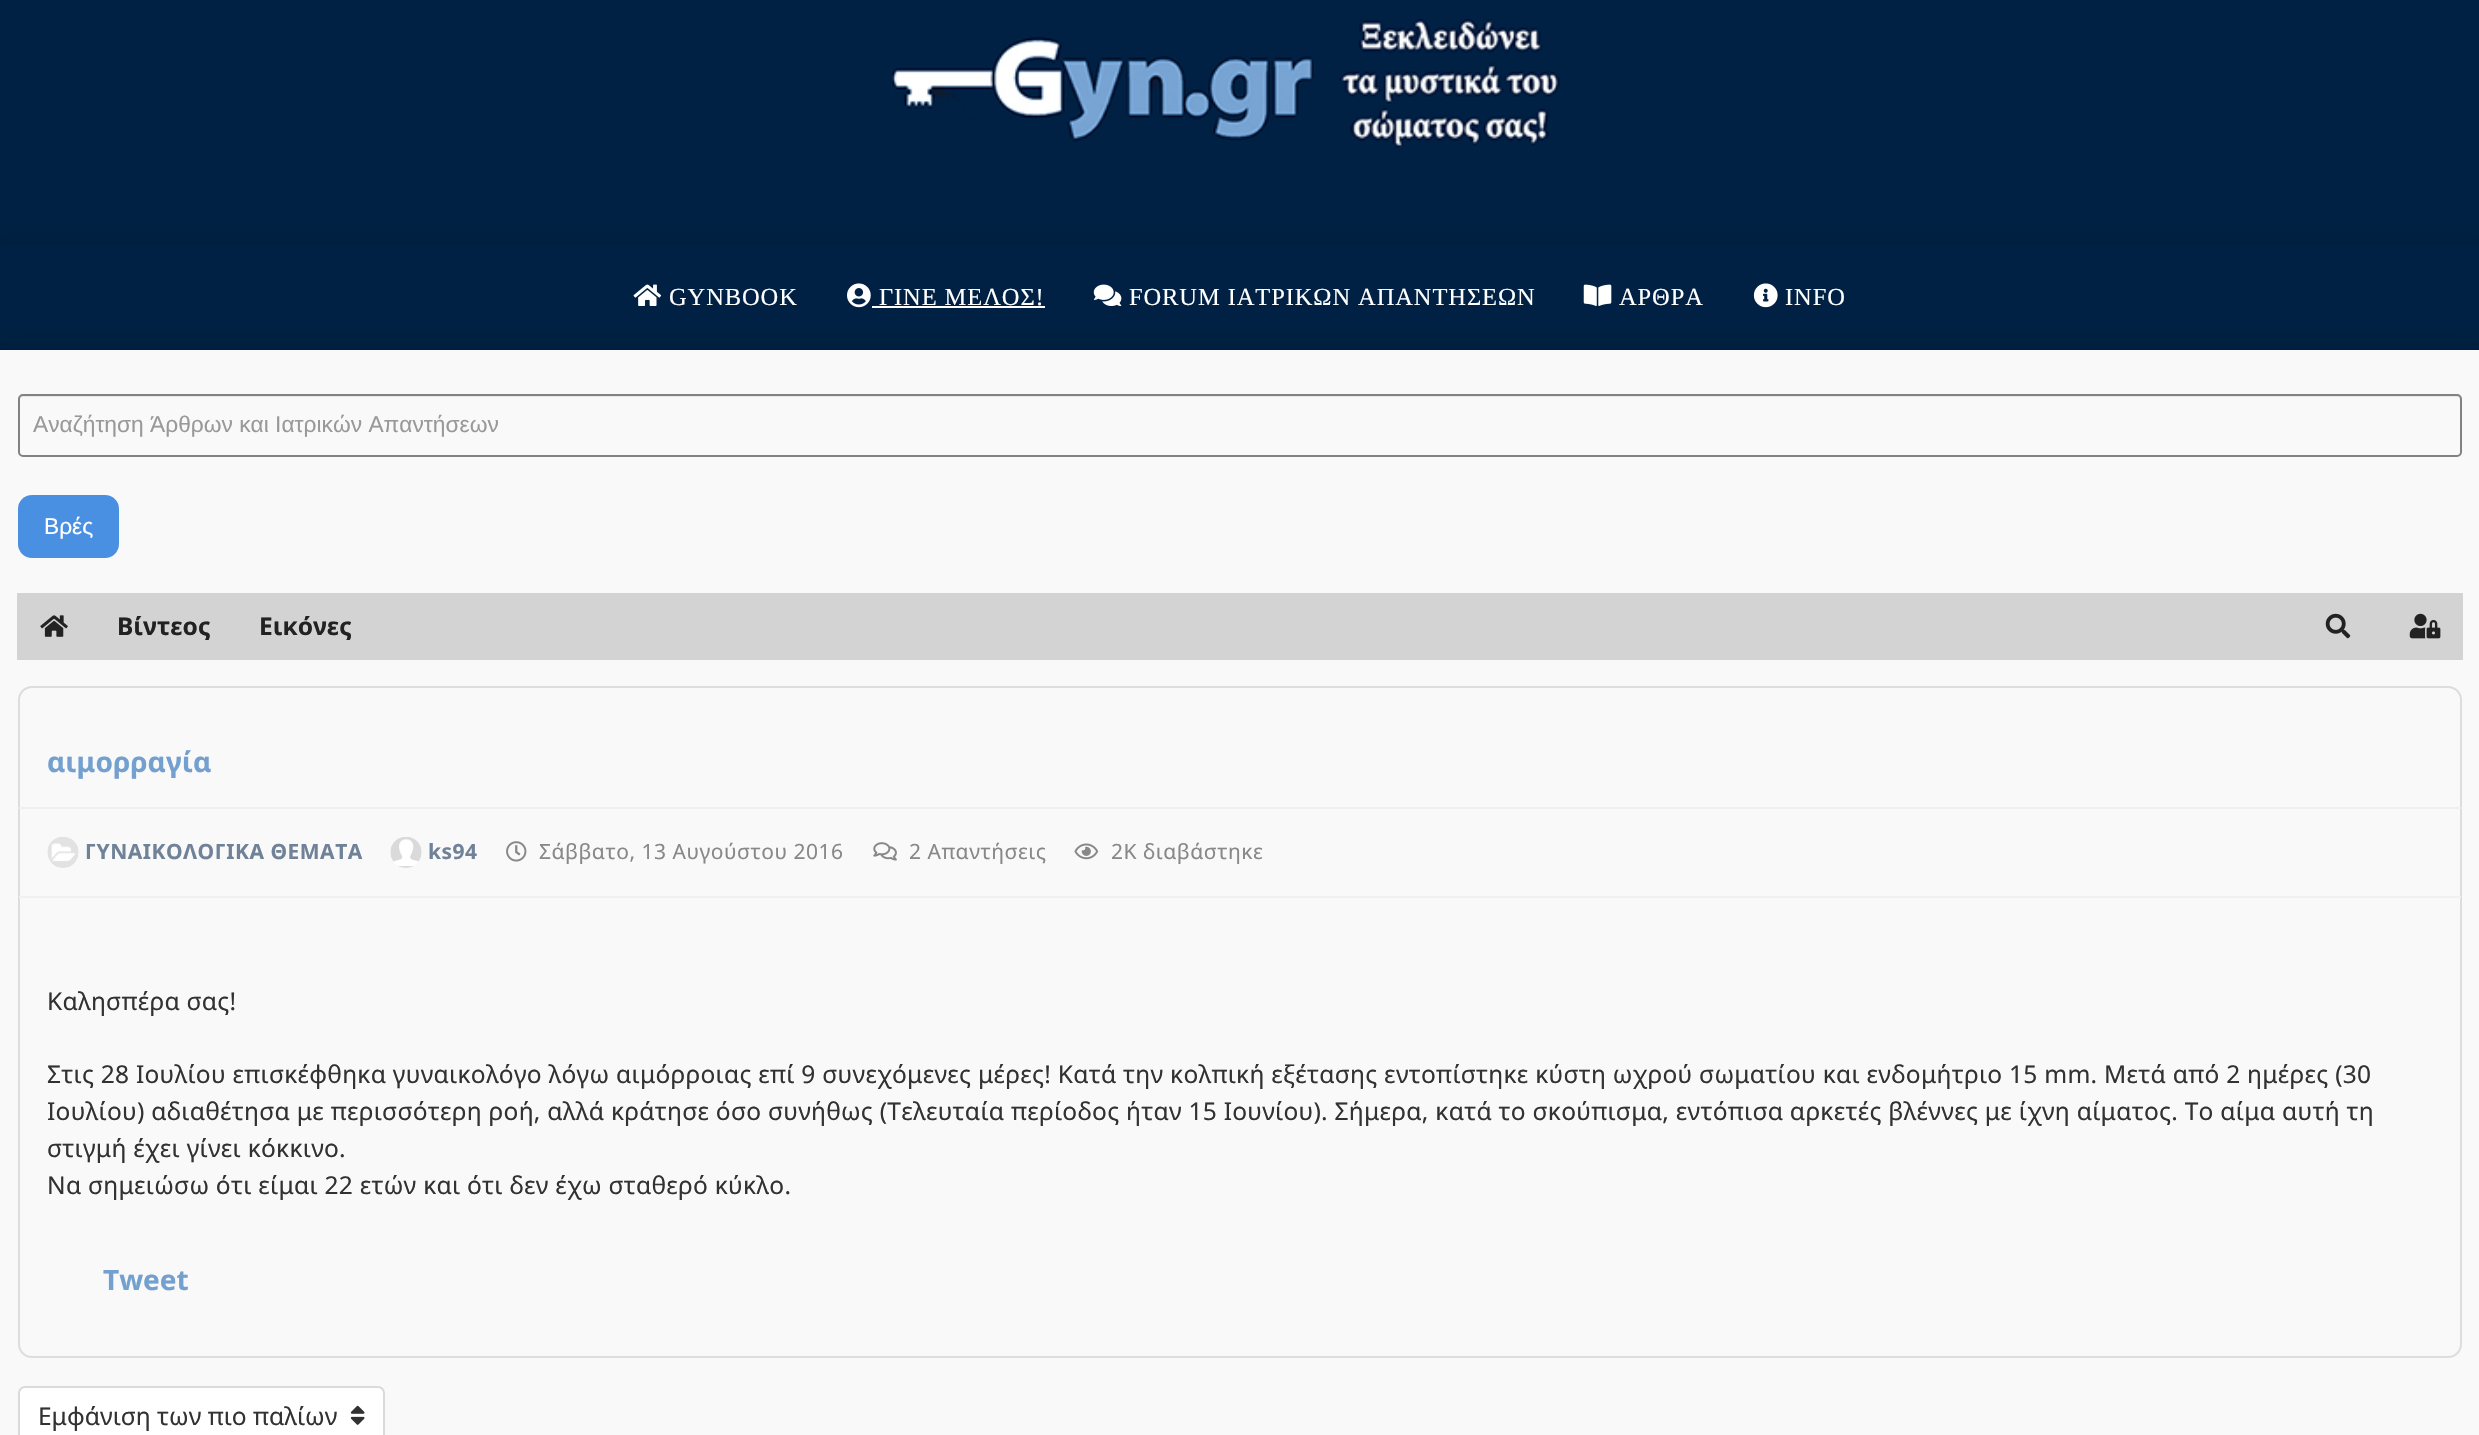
static SkFont makeFont(const char* family, int weight, float size, bool italic = false) {
  SkFontStyle style(weight, SkFontStyle::kNormal_Width,
    italic ? SkFontStyle::kItalic_Slant : SkFontStyle::kUpright_Slant);
  SkFont result(fontMgr->matchFamilyStyle(family, style), size);
  result.setSubpixel(true);
  return result;
}

static void text(SkCanvas* c, const char* s, float x, float y, const SkFont& font, SkColor color) {
  SkPaint ink(SkColor4f::FromColor(color));
  ink.setAntiAlias(true);
  c->drawString(s, x, y, font, ink);
}

static void spacedText(SkCanvas* c, const char* s, float x, float y, const SkFont& font, const SkPaint& ink, float letter, float word) {
  std::vector<SkGlyphID> glyphs(font.countText(s, strlen(s), SkTextEncoding::kUTF8));
  std::vector<float> xs(glyphs.size());
  font.textToGlyphs(s, strlen(s), SkTextEncoding::kUTF8, glyphs);
  font.getXPos(glyphs, xs, x);
  float extra = 0;
  for (size_t i = 0; i < glyphs.size(); i++) {
    xs[i] += extra;
    extra += letter + word * (glyphs[i] == font.unicharToGlyph(' '));
  }
  c->drawTextBlob(SkTextBlob::MakeFromPosHGlyphs(glyphs, xs, y, font), 0, 0, ink);
}

static void box(SkCanvas* c, float l, float t, float r, float b, SkColor color) {
  SkPaint ink(SkColor4f::FromColor(color));
  ink.setAntiAlias(true);
  c->drawRect(SkRect::MakeLTRB(l, t, r, b), ink);
}

static void roundBox(SkCanvas* c, float l, float t, float r, float b, float radius, SkColor color) {
  SkPaint ink(SkColor4f::FromColor(color));
  ink.setAntiAlias(true);
  c->drawRoundRect(SkRect::MakeLTRB(l, t, r, b), radius, radius, ink);
}

static void picture(SkCanvas* c, const char* path, float l, float t, float r, float b) {
  auto image = SkImages::DeferredFromEncodedData(SkData::MakeFromFileName(path));
  c->drawImageRect(image, SkRect::MakeLTRB(l, t, r, b), SkSamplingOptions());
}

void draw(SkCanvas* c) {
  SkPaint paint;
  paint.setAntiAlias(true);
  c->clear(0xff002143);
  paint.setColor(0x30000000);
  paint.setMaskFilter(SkMaskFilter::MakeBlur(kNormal_SkBlurStyle, 17.5f));
  c->drawRect(SkRect::MakeLTRB(0, 256, 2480, 361), paint);
  paint.setMaskFilter(nullptr);
  paint.setColor(0x33000000);
  paint.setMaskFilter(SkMaskFilter::MakeBlur(kNormal_SkBlurStyle, 7));
  c->drawRect(SkRect::MakeLTRB(0, 252, 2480, 357), paint);
  paint.setMaskFilter(nullptr);
  box(c, 0, 245, 2479, 350, 0xff002143);
  picture(c, "img_01.png", 890, 19, 1560, 148);
  picture(c, "img_02.png", 633, 284, 662, 306);
  SkFont face1 = makeFont("Liberation Serif", 400, 24.5f);
  paint.setColor(0xffffffff);
  spacedText(c, "GYNBOOK", 669, 305, face1, paint, 0.9f, 0);
  paint.setColor(0x30000000);
  paint.setMaskFilter(SkMaskFilter::MakeBlur(kNormal_SkBlurStyle, 17.5f));
  c->drawRect(SkRect::MakeLTRB(0, 361, 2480, 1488), paint);
  paint.setMaskFilter(nullptr);
  picture(c, "img_03.png", 847, 283, 871, 308);
  paint.setColor(0xffffffff);
  spacedText(c, "ΓΙΝΕ ΜΕΛΟΣ!", 879, 305, face1, paint, 0.9f, 0);
  box(c, 872, 306, 1045, 308, 0xffffffff);
  picture(c, "img_04.png", 1093, 284, 1122, 306);
  spacedText(c, "FORUM ΙΑΤΡΙΚΩΝ ΑΠΑΝΤΗΣΕΩΝ", 1129, 305, face1, paint, 0.9f, 0);
  picture(c, "img_05.png", 1583, 284, 1612, 306);
  spacedText(c, "ΑΡΘΡΑ", 1619, 305, face1, paint, 0.9f, 0);
  picture(c, "img_06.png", 1753, 283, 1778, 308);
  spacedText(c, "INFO", 1785, 305, face1, paint, 0.9f, 0);
  paint.setColor(0x33000000);
  paint.setMaskFilter(SkMaskFilter::MakeBlur(kNormal_SkBlurStyle, 7));
  c->drawRect(SkRect::MakeLTRB(0, 357, 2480, 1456), paint);
  paint.setMaskFilter(nullptr);
  box(c, 0, 350, 2479, 1435, 0xfff9f9f9);
  paint.setColor(0xffe6e6e6);
  c->drawPath(SkPathBuilder().moveTo(23, 397).lineTo(2457, 397).cubicTo(2459, 397, 2460, 399, 2460, 401).lineTo(2460, 454).lineTo(2461, 451).lineTo(2461, 399).cubicTo(2461, 397, 2459, 396, 2457, 396).lineTo(23, 396).cubicTo(20, 396, 19, 398, 19, 401).cubicTo(19, 399, 21, 397, 23, 397).close().detach(), paint);
  paint.setStyle(SkPaint::kStroke_Style);
  paint.setStrokeWidth(2);
  paint.setColor(0xff828282);
  c->drawRoundRect(SkRect::MakeLTRB(19, 395, 2461, 456), 4, 4, paint);
  SkFont face2 = makeFont("Liberation Sans", 400, 22.75f);
  text(c, "Αναζήτηση Άρθρων και Ιατρικών Απαντήσεων", 33, 432, face2, 0xff999999);
  roundBox(c, 18, 495, 119, 558, 14, 0xff4a90e2);
  text(c, "Βρές", 44, 534, face2, 0xffffffff);
  box(c, 17, 593, 2463, 660, 0xffd3d3d3);
  picture(c, "img_07.png", 40, 615, 68, 637);
  SkFont face3 = makeFont("Noto Sans", 700, 24.5f);
  text(c, "Βίντεος", 117, 635, face3, 0xff222222);
  text(c, "Εικόνες", 259, 635, face3, 0xff222222);
  picture(c, "img_08.png", 2325, 613, 2351, 639);
  picture(c, "img_09.png", 2409, 613, 2441, 639);
  paint.setColor(0xffdddddd);
  c->drawRoundRect(SkRect::MakeLTRB(19, 687, 2461, 1357), 13, 13, paint);
  SkFont face4 = makeFont("Noto Sans", 700, 28);
  text(c, "αιμορραγία", 47, 772, face4, 0xff73a0cf);
  box(c, 19, 807, 2461, 809, 0xfff0f0f1);
  picture(c, "img_10.png", 47, 837, 79, 868);
  SkFont face5 = makeFont("Noto Sans", 700, 21);
  paint.setStyle(SkPaint::kFill_Style);
  paint.setColor(0xff708298);
  spacedText(c, "ΓΥΝΑΙΚΟΛΟΓΙΚΑ ΘΕΜΑΤΑ", 85, 859, face5, paint, 0.5f, 0);
  picture(c, "img_11.png", 390, 837, 422, 868);
  spacedText(c, "ks94", 428, 859, face5, paint, 0.5f, 0);
  picture(c, "img_12.png", 506, 841, 527, 862);
  SkFont face6 = makeFont("Noto Sans", 400, 21);
  paint.setColor(0xff888888);
  spacedText(c, "Σάββατο, 13 Αυγούστου 2016", 539, 859, face6, paint, 0.5f, 0);
  picture(c, "img_13.png", 873, 842, 897, 861);
  spacedText(c, "2 Απαντήσεις", 909, 859, face6, paint, 0.5f, 0);
  picture(c, "img_14.png", 1074, 843, 1099, 860);
  spacedText(c, "2K διαβάστηκε", 1111, 859, face6, paint, 0.5f, 0);
  box(c, 19, 896, 2461, 898, 0xfff0f0f1);
  SkFont face7 = makeFont("Noto Sans", 400, 24.5f);
  paint.setColor(0xff323232);
  spacedText(c, "Καλησπέρα σας!", 47, 1010, face7, paint, 0.26f, 0);
  spacedText(c, "Στις 28 Ιουλίου επισκέφθηκα γυναικολόγο λόγω αιμόρροιας επί 9 συνεχόμενες μέρες! Κατά την κολπική εξέτασης εντοπίστηκε κύστη ωχρού σωματίου και ενδομήτριο 15 mm. Μετά από 2 ημέρες (30", 47, 1083, face7, paint, 0.26f, 0);
  spacedText(c, "Ιουλίου) αδιαθέτησα με περισσότερη ροή, αλλά κράτησε όσο συνήθως (Τελευταία περίοδος ήταν 15 Ιουνίου). Σήμερα, κατά το σκούπισμα, εντόπισα αρκετές βλέννες με ίχνη αίματος. Το αίμα αυτή τη", 47, 1120, face7, paint, 0.26f, 0);
  spacedText(c, "στιγμή έχει γίνει κόκκινο.", 47, 1157, face7, paint, 0.26f, 0);
  spacedText(c, "Να σημειώσω ότι είμαι 22 ετών και ότι δεν έχω σταθερό κύκλο.", 47, 1194, face7, paint, 0.26f, 0);
  text(c, "Tweet", 103, 1290, face4, 0xff73a0cf);
  paint.setColor(0xffffffff);
  c->drawRoundRect(SkRect::MakeLTRB(19, 1387, 384, 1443), 6, 6, paint);
  paint.setStyle(SkPaint::kStroke_Style);
  paint.setColor(0xffd9d9de);
  c->drawRoundRect(SkRect::MakeLTRB(19, 1387, 384, 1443), 6, 6, paint);
  text(c, "Εμφάνιση των πιο παλίων", 38, 1425, face7, 0xff323232);
  picture(c, "img_15.png", 350, 1405, 365, 1425);
}
